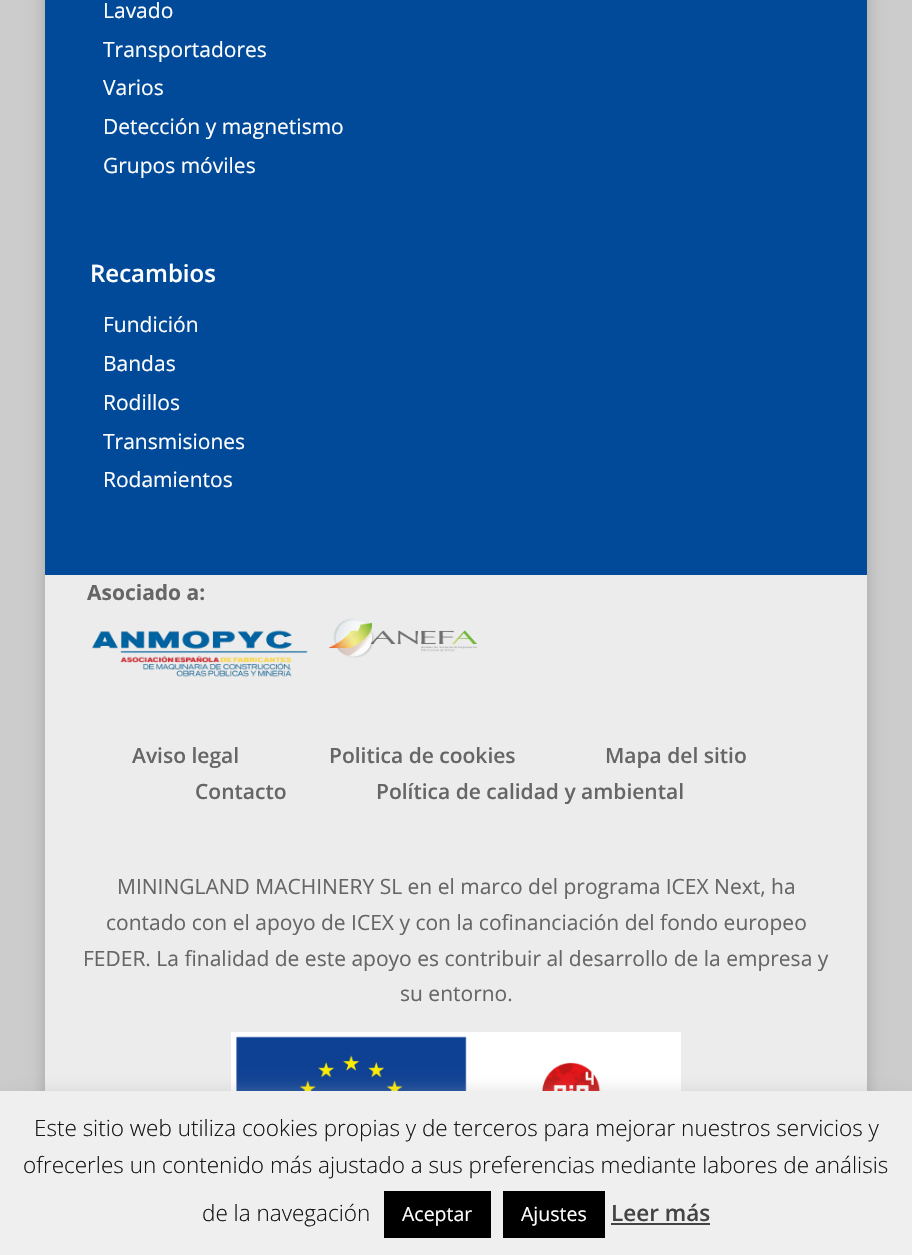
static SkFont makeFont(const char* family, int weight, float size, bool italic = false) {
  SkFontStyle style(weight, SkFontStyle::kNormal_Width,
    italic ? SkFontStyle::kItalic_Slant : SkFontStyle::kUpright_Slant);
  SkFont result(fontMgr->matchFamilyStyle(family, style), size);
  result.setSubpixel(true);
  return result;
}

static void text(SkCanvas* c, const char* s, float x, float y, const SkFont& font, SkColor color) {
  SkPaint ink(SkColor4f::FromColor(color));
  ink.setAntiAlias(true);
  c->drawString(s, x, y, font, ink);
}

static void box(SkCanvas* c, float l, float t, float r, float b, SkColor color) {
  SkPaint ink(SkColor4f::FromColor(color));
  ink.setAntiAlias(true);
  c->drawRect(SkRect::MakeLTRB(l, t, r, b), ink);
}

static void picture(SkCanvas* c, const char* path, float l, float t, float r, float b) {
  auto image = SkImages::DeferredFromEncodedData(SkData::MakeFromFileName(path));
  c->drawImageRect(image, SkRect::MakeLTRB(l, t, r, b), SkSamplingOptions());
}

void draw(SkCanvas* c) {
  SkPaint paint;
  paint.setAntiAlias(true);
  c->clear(0xffcccccc);
  paint.setColor(0x33000000);
  paint.setMaskFilter(SkMaskFilter::MakeBlur(kNormal_SkBlurStyle, 7.5f));
  c->drawRect(SkRect::MakeLTRB(45, -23, 867, 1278), paint);
  paint.setMaskFilter(nullptr);
  box(c, 45, 0, 867, 575, 0xff004a99);
  SkFont face1 = makeFont("Open Sans", 400, 21);
  text(c, "Lavado", 103, 18, face1, 0xffffffff);
  text(c, "Transportadores", 103, 57, face1, 0xffffffff);
  text(c, "Varios", 103, 95, face1, 0xffffffff);
  text(c, "Detección y magnetismo", 103, 134, face1, 0xffffffff);
  text(c, "Grupos móviles", 103, 173, face1, 0xffffffff);
  SkFont face2 = makeFont("Open Sans", 600, 24);
  text(c, "Recambios", 90, 282, face2, 0xffffffff);
  text(c, "Fundición", 103, 332, face1, 0xffffffff);
  text(c, "Bandas", 103, 371, face1, 0xffffffff);
  text(c, "Rodillos", 103, 410, face1, 0xffffffff);
  text(c, "Transmisiones", 103, 449, face1, 0xffffffff);
  text(c, "Rodamientos", 103, 487, face1, 0xffffffff);
  box(c, 45, 575, 867, 1091, 0xffececec);
  SkFont face3 = makeFont("Open Sans", 700, 21);
  text(c, "Asociado a:", 87, 600, face3, 0xff666666);
  picture(c, "img_01.png", 91, 630, 308, 677);
  picture(c, "img_02.png", 328, 618, 477, 658);
  SkFont face4 = makeFont("Open Sans", 600, 21);
  text(c, "Aviso legal", 132, 763, face4, 0xff666666);
  text(c, "Politica de cookies", 329, 763, face4, 0xff666666);
  text(c, "Mapa del sitio", 605, 763, face4, 0xff666666);
  text(c, "Contacto", 195, 799, face4, 0xff666666);
  text(c, "Política de calidad y ambiental", 376, 799, face4, 0xff666666);
  text(c, "MININGLAND MACHINERY SL en el marco del programa ICEX Next, ha", 117, 894, face1, 0xff666666);
  text(c, "contado con el apoyo de ICEX y con la cofinanciación del fondo europeo", 106, 930, face1, 0xff666666);
  text(c, "FEDER. La finalidad de este apoyo es contribuir al desarrollo de la empresa y", 83, 966, face1, 0xff666666);
  text(c, "su entorno.", 400, 1001, face1, 0xff666666);
  picture(c, "img_03.png", 231, 1032, 681, 1091);
  paint.setColor(0x4dacabab);
  paint.setMaskFilter(SkMaskFilter::MakeBlur(kNormal_SkBlurStyle, 7.5f));
  c->drawRect(SkRect::MakeLTRB(0, 1089, 912, 1254), paint);
  paint.setMaskFilter(nullptr);
  box(c, 0, 1091, 912, 1255, 0xffefefef);
  SkFont face5 = makeFont("Open Sans", 300, 22.5f);
  text(c, "Este sitio web utiliza cookies propias y de terceros para mejorar nuestros servicios y", 34, 1136, face5, 0xff161616);
  text(c, "ofrecerles un contenido más ajustado a sus preferencias mediante labores de análisis", 23, 1173, face5, 0xff161616);
  text(c, "de la navegación", 202, 1221, face5, 0xff161616);
  box(c, 384, 1191, 491, 1238, 0xff000000);
  SkFont face6 = makeFont("Open Sans", 400, 19.5f);
  text(c, "Aceptar", 402, 1221, face6, 0xffffffff);
  box(c, 503, 1191, 605, 1238, 0xff000000);
  text(c, "Ajustes", 521, 1221, face6, 0xffffffff);
  SkFont face7 = makeFont("Open Sans", 600, 22.5f);
  text(c, "Leer más", 611, 1221, face7, 0xff444444);
  box(c, 611, 1223, 710, 1225, 0xff444444);
}
